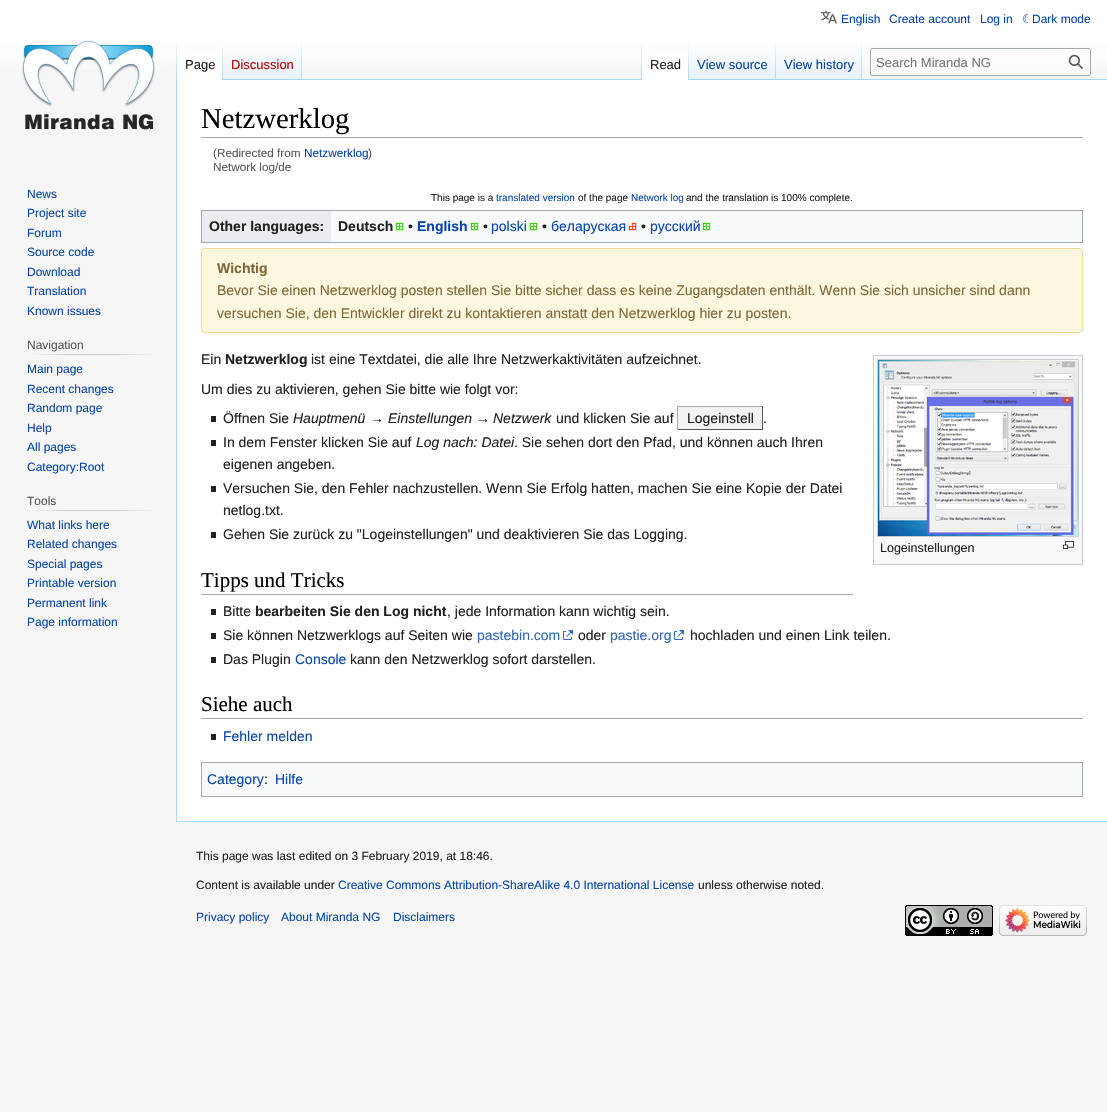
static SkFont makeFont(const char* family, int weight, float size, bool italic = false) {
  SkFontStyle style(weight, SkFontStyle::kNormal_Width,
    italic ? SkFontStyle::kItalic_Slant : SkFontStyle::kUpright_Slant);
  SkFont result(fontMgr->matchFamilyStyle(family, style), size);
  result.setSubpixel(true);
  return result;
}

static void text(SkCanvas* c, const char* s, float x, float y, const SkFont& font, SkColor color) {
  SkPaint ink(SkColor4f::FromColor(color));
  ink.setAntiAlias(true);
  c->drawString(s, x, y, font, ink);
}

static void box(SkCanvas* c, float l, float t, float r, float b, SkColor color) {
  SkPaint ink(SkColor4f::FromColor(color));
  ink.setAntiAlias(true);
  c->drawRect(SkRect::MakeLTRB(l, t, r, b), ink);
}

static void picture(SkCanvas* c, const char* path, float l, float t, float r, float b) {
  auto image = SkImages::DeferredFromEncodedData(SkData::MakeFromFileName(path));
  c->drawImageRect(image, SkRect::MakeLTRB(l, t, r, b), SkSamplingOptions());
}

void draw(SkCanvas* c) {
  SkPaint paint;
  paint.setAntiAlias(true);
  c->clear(0xfff6f6f6);
  {
    const SkColor colors[] = {0xffffffff, 0xfff6f6f6};
    const float stops[] = {0.5f, 1};
    const SkPoint ends[] = {{554, 0}, {554, 80}};
    paint.setShader(SkGradientShader::MakeLinear(ends, colors, stops, 2, SkTileMode::kClamp));
    paint.setAlpha(255);
  }
  c->drawRect(SkRect::MakeLTRB(0, 0, 1107, 69), paint);
  picture(c, "img_01.png", 821, 10, 837, 24);
  SkFont face1 = makeFont("Liberation Sans", 400, 12);
  text(c, "English", 841, 23, face1, 0xff0645ad);
  text(c, "Create account", 889, 23, face1, 0xff0645ad);
  text(c, "Log in", 980, 23, face1, 0xff0645ad);
  SkFont face2 = makeFont("DejaVu Sans", 400, 12);
  text(c, "☾", 1022, 23, face2, 0xff0645ad);
  text(c, "Dark mode", 1032, 23, face1, 0xff0645ad);
  box(c, 176, 821, 1107, 822, 0xffa7d7f9);
  box(c, 176, 79, 177, 822, 0xffa7d7f9);
  {
    const SkColor colors[] = {0x00a7d7f9, 0xffa7d7f9};
    const float stops[] = {0, 1};
    const SkPoint ends[] = {{177, 40}, {177, 80}};
    paint.setShader(SkGradientShader::MakeLinear(ends, colors, stops, 2, SkTileMode::kClamp));
    paint.setAlpha(255);
  }
  c->drawRect(SkRect::MakeLTRB(176, 40, 177, 80), paint);
  box(c, 177, 51, 222, 80, 0xffffffff);
  {
    const SkColor colors[] = {0xffffffff, 0xffa7d7f9};
    const float stops[] = {0, 1};
    const SkPoint ends[] = {{223, 40}, {223, 80}};
    paint.setShader(SkGradientShader::MakeLinear(ends, colors, stops, 2, SkTileMode::kClamp));
    paint.setAlpha(255);
  }
  c->drawRect(SkRect::MakeLTRB(222, 40, 223, 80), paint);
  SkFont face3 = makeFont("Liberation Sans", 400, 13);
  text(c, "Page", 185, 69, face3, 0xff202122);
  {
    const SkColor colors[] = {0xff77c1f6, 0xffe8f2f8, 0xffffffff};
    const float stops[] = {0, 0.03f, 1};
    const SkPoint ends[] = {{263, 80}, {263, 40}};
    paint.setShader(SkGradientShader::MakeLinear(ends, colors, stops, 3, SkTileMode::kClamp));
    paint.setAlpha(255);
  }
  c->drawRect(SkRect::MakeLTRB(223, 46, 302, 80), paint);
  {
    const SkColor colors[] = {0x00a7d7f9, 0xffa7d7f9};
    const float stops[] = {0, 1};
    const SkPoint ends[] = {{302, 40}, {302, 80}};
    paint.setShader(SkGradientShader::MakeLinear(ends, colors, stops, 2, SkTileMode::kClamp));
    paint.setAlpha(255);
  }
  c->drawRect(SkRect::MakeLTRB(301, 40, 302, 80), paint);
  text(c, "Discussion", 231, 69, face3, 0xffba0000);
  box(c, 302, 79, 1107, 80, 0xffa7d7f9);
  {
    const SkColor colors[] = {0x00a7d7f9, 0xffa7d7f9};
    const float stops[] = {0, 1};
    const SkPoint ends[] = {{642, 40}, {642, 80}};
    paint.setShader(SkGradientShader::MakeLinear(ends, colors, stops, 2, SkTileMode::kClamp));
    paint.setAlpha(255);
  }
  c->drawRect(SkRect::MakeLTRB(641, 40, 642, 80), paint);
  box(c, 642, 51, 688, 80, 0xffffffff);
  {
    const SkColor colors[] = {0xffffffff, 0xffa7d7f9};
    const float stops[] = {0, 1};
    const SkPoint ends[] = {{689, 40}, {689, 80}};
    paint.setShader(SkGradientShader::MakeLinear(ends, colors, stops, 2, SkTileMode::kClamp));
    paint.setAlpha(255);
  }
  c->drawRect(SkRect::MakeLTRB(688, 40, 689, 80), paint);
  text(c, "Read", 650, 69, face3, 0xff202122);
  {
    const SkColor colors[] = {0xff77c1f6, 0xffe8f2f8, 0xffffffff};
    const float stops[] = {0, 0.03f, 1};
    const SkPoint ends[] = {{733, 80}, {733, 40}};
    paint.setShader(SkGradientShader::MakeLinear(ends, colors, stops, 3, SkTileMode::kClamp));
    paint.setAlpha(255);
  }
  c->drawRect(SkRect::MakeLTRB(689, 46, 776, 79), paint);
  {
    const SkColor colors[] = {0x00a7d7f9, 0xffa7d7f9};
    const float stops[] = {0, 1};
    const SkPoint ends[] = {{776, 40}, {776, 80}};
    paint.setShader(SkGradientShader::MakeLinear(ends, colors, stops, 2, SkTileMode::kClamp));
    paint.setAlpha(255);
  }
  c->drawRect(SkRect::MakeLTRB(775, 40, 776, 80), paint);
  text(c, "View source", 697, 69, face3, 0xff0645ad);
  {
    const SkColor colors[] = {0xff77c1f6, 0xffe8f2f8, 0xffffffff};
    const float stops[] = {0, 0.03f, 1};
    const SkPoint ends[] = {{819, 80}, {819, 40}};
    paint.setShader(SkGradientShader::MakeLinear(ends, colors, stops, 3, SkTileMode::kClamp));
    paint.setAlpha(255);
  }
  c->drawRect(SkRect::MakeLTRB(776, 46, 862, 79), paint);
  {
    const SkColor colors[] = {0x00a7d7f9, 0xffa7d7f9};
    const float stops[] = {0, 1};
    const SkPoint ends[] = {{862, 40}, {862, 80}};
    paint.setShader(SkGradientShader::MakeLinear(ends, colors, stops, 2, SkTileMode::kClamp));
    paint.setAlpha(255);
  }
  c->drawRect(SkRect::MakeLTRB(861, 40, 862, 80), paint);
  text(c, "View history", 784, 69, face3, 0xff0645ad);
  paint.setShader(nullptr);
  paint.setColor(0x80ffffff);
  c->drawRoundRect(SkRect::MakeLTRB(870.5f, 48.5f, 1090.5f, 75.5f), 1.5f, 1.5f, paint);
  paint.setStyle(SkPaint::kStroke_Style);
  paint.setStrokeWidth(1);
  paint.setColor(0xffa2a9b1);
  c->drawRoundRect(SkRect::MakeLTRB(870.5f, 48.5f, 1090.5f, 75.5f), 1.5f, 1.5f, paint);
  text(c, "Search Miranda NG", 876, 67, face3, 0xff72777d);
  picture(c, "img_02.png", 1068, 54, 1083, 69);
  picture(c, "img_03.png", 22, 40, 155, 130);
  text(c, "News", 27, 198, face1, 0xff0645ad);
  text(c, "Project site", 27, 217, face1, 0xff0645ad);
  text(c, "Forum", 27, 237, face1, 0xff0645ad);
  text(c, "Source code", 27, 256, face1, 0xff0645ad);
  text(c, "Download", 27, 276, face1, 0xff0645ad);
  text(c, "Translation", 27, 295, face1, 0xff0645ad);
  text(c, "Known issues", 27, 315, face1, 0xff0645ad);
  paint.setStyle(SkPaint::kFill_Style);
  {
    const SkColor colors[] = {0xfff6f6f6, 0xffc8ccd1, 0xffc8ccd1, 0xfff6f6f6};
    const float stops[] = {0, 0.33f, 0.66f, 1};
    const SkPoint ends[] = {{27, 355}, {158, 355}};
    paint.setShader(SkGradientShader::MakeLinear(ends, colors, stops, 4, SkTileMode::kClamp));
    paint.setAlpha(255);
  }
  c->drawRect(SkRect::MakeLTRB(27, 354, 158, 355), paint);
  text(c, "Navigation", 27, 349, face1, 0xff54595d);
  text(c, "Main page", 27, 373, face1, 0xff0645ad);
  text(c, "Recent changes", 27, 393, face1, 0xff0645ad);
  text(c, "Random page", 27, 412, face1, 0xff0645ad);
  text(c, "Help", 27, 432, face1, 0xff0645ad);
  text(c, "All pages", 27, 451, face1, 0xff0645ad);
  text(c, "Category:Root", 27, 471, face1, 0xff0645ad);
  {
    const SkColor colors[] = {0xfff6f6f6, 0xffc8ccd1, 0xffc8ccd1, 0xfff6f6f6};
    const float stops[] = {0, 0.33f, 0.66f, 1};
    const SkPoint ends[] = {{27, 511}, {158, 511}};
    paint.setShader(SkGradientShader::MakeLinear(ends, colors, stops, 4, SkTileMode::kClamp));
    paint.setAlpha(255);
  }
  c->drawRect(SkRect::MakeLTRB(27, 510, 158, 511), paint);
  text(c, "Tools", 27, 505, face1, 0xff54595d);
  text(c, "What links here", 27, 529, face1, 0xff0645ad);
  text(c, "Related changes", 27, 548, face1, 0xff0645ad);
  text(c, "Special pages", 27, 568, face1, 0xff0645ad);
  text(c, "Printable version", 27, 587, face1, 0xff0645ad);
  text(c, "Permanent link", 27, 607, face1, 0xff0645ad);
  text(c, "Page information", 27, 626, face1, 0xff0645ad);
  box(c, 177, 80, 1107, 821, 0xffffffff);
  box(c, 201, 137, 1083, 138, 0xffa2a9b1);
  SkFont face4 = makeFont("Liberation Serif", 400, 28.75f);
  text(c, "Netzwerklog", 201, 128, face4, 0xff000000);
  SkFont face5 = makeFont("Liberation Sans", 400, 11.75f);
  text(c, "(Redirected from", 213, 157, face5, 0xff54595d);
  text(c, "Netzwerklog", 304, 157, face5, 0xff0645ad);
  text(c, ")", 368, 157, face5, 0xff54595d);
  text(c, "Network log/de", 213, 171, face5, 0xff54595d);
  SkFont face6 = makeFont("Liberation Sans", 400, 10);
  text(c, "This page is a", 431, 201, face6, 0xff202122);
  text(c, "translated version", 496, 201, face6, 0xff0645ad);
  text(c, "of the page", 578, 201, face6, 0xff202122);
  text(c, "Network log", 631, 201, face6, 0xff0645ad);
  text(c, "and the translation is 100% complete.", 686, 201, face6, 0xff202122);
  box(c, 331, 211, 1082, 242, 0xfff8f9fa);
  paint.setStyle(SkPaint::kStroke_Style);
  paint.setShader(nullptr);
  paint.setColor(0xffa2a9b1);
  c->drawRect(SkRect::MakeLTRB(201.5f, 210.5f, 1082.5f, 242.5f), paint);
  box(c, 202, 211, 331, 242, 0xffeaecf0);
  SkFont face7 = makeFont("Liberation Sans", 700, 14);
  text(c, "Other languages:", 209, 231, face7, 0xff202122);
  text(c, "Deutsch", 338, 231, face7, 0xff202122);
  picture(c, "img_04.png", 395, 222, 404, 231);
  SkFont face8 = makeFont("Liberation Sans", 400, 14);
  text(c, "•", 408, 231, face8, 0xff202122);
  text(c, "English", 417, 231, face7, 0xff0645ad);
  picture(c, "img_04.png", 470, 222, 479, 231);
  text(c, "•", 483, 231, face8, 0xff202122);
  text(c, "polski", 491, 231, face8, 0xff0645ad);
  picture(c, "img_04.png", 529, 222, 538, 231);
  text(c, "•", 542, 231, face8, 0xff202122);
  text(c, "беларуская", 551, 231, face8, 0xff0645ad);
  picture(c, "img_05.png", 628, 222, 637, 231);
  text(c, "•", 641, 231, face8, 0xff202122);
  text(c, "русский", 650, 231, face8, 0xff0645ad);
  picture(c, "img_04.png", 702, 222, 711, 231);
  paint.setStyle(SkPaint::kFill_Style);
  paint.setColor(0xfffcf7df);
  c->drawRoundRect(SkRect::MakeLTRB(201.5f, 248.5f, 1082.5f, 332.5f), 3.5f, 3.5f, paint);
  paint.setStyle(SkPaint::kStroke_Style);
  paint.setColor(0xfff5d699);
  c->drawRoundRect(SkRect::MakeLTRB(201.5f, 248.5f, 1082.5f, 332.5f), 3.5f, 3.5f, paint);
  text(c, "Wichtig", 217, 273, face7, 0xff816637);
  text(c, "Bevor Sie einen Netzwerklog posten stellen Sie bitte sicher dass es keine Zugangsdaten enthält. Wenn Sie sich unsicher sind dann", 217, 295, face8, 0xff816637);
  text(c, "versuchen Sie, den Entwickler direkt zu kontaktieren anstatt den Netzwerklog hier zu posten.", 217, 318, face8, 0xff816637);
  text(c, "Ein", 201, 364, face8, 0xff202122);
  text(c, "Netzwerklog", 225, 364, face7, 0xff202122);
  text(c, "ist eine Textdatei, die alle Ihre Netzwerkaktivitäten aufzeichnet.", 311, 364, face8, 0xff202122);
  text(c, "Um dies zu aktivieren, gehen Sie bitte wie folgt vor:", 201, 394, face8, 0xff202122);
  box(c, 211, 416, 216, 422, 0xff202122);
  text(c, "Öffnen Sie", 223, 423, face8, 0xff202122);
  SkFont face9 = makeFont("Liberation Sans", 400, 14, true);
  text(c, "Hauptmenü", 293, 423, face9, 0xff202122);
  text(c, "→", 370, 423, face8, 0xff202122);
  text(c, "Einstellungen", 388, 423, face9, 0xff202122);
  text(c, "→", 476, 423, face8, 0xff202122);
  text(c, "Netzwerk", 493, 423, face9, 0xff202122);
  text(c, "und klicken Sie auf", 556, 423, face8, 0xff202122);
  box(c, 678, 407, 762, 429, 0xfff2f2f2);
  text(c, "Logeinstell", 687, 423, face8, 0xff202122);
  box(c, 677, 406, 763, 407, 0xffaaaaaa);
  box(c, 762, 406, 763, 430, 0xff555555);
  box(c, 677, 429, 763, 430, 0xff555555);
  box(c, 677, 406, 678, 430, 0xffaaaaaa);
  text(c, ".", 763, 423, face8, 0xff202122);
  box(c, 211, 440, 216, 446, 0xff202122);
  text(c, "In dem Fenster klicken Sie auf", 223, 447, face8, 0xff202122);
  text(c, "Log nach: Datei", 416, 447, face9, 0xff202122);
  text(c, ". Sie sehen dort den Pfad, und können auch Ihren", 514, 447, face8, 0xff202122);
  text(c, "eigenen angeben.", 223, 469, face8, 0xff202122);
  box(c, 211, 486, 216, 492, 0xff202122);
  text(c, "Versuchen Sie, den Fehler nachzustellen. Wenn Sie Erfolg hatten, machen Sie eine Kopie der Datei", 223, 493, face8, 0xff202122);
  text(c, "netlog.txt.", 223, 515, face8, 0xff202122);
  box(c, 211, 532, 216, 538, 0xff202122);
  text(c, "Gehen Sie zurück zu \"Logeinstellungen\" und deaktivieren Sie das Logging.", 223, 539, face8, 0xff202122);
  paint.setStyle(SkPaint::kFill_Style);
  paint.setColor(0xfff8f9fa);
  c->drawRect(SkRect::MakeLTRB(873.5f, 355.5f, 1082.5f, 564.5f), paint);
  paint.setStyle(SkPaint::kStroke_Style);
  paint.setColor(0xffc8ccd1);
  c->drawRect(SkRect::MakeLTRB(873.5f, 355.5f, 1082.5f, 564.5f), paint);
  c->drawRect(SkRect::MakeLTRB(877.5f, 359.5f, 1078.5f, 536.5f), paint);
  picture(c, "img_06.png", 878, 360, 1078, 536);
  SkFont face10 = makeFont("Liberation Sans", 400, 12.5f);
  text(c, "Logeinstellungen", 880, 552, face10, 0xff202122);
  picture(c, "img_07.png", 1063, 541, 1074, 549);
  box(c, 201, 594, 853, 595, 0xffa2a9b1);
  SkFont face11 = makeFont("Liberation Serif", 400, 21);
  text(c, "Tipps und Tricks", 201, 587, face11, 0xff000000);
  box(c, 211, 609, 216, 615, 0xff202122);
  text(c, "Bitte", 223, 616, face8, 0xff202122);
  text(c, "bearbeiten Sie den Log nicht", 255, 616, face7, 0xff202122);
  text(c, ", jede Information kann wichtig sein.", 447, 616, face8, 0xff202122);
  box(c, 211, 633, 216, 639, 0xff202122);
  text(c, "Sie können Netzwerklogs auf Seiten wie", 223, 640, face8, 0xff202122);
  text(c, "pastebin.com", 477, 640, face8, 0xff3366bb);
  picture(c, "img_08.png", 563, 630, 573, 640);
  text(c, "oder", 578, 640, face8, 0xff202122);
  text(c, "pastie.org", 610, 640, face8, 0xff3366bb);
  picture(c, "img_08.png", 674, 630, 684, 640);
  text(c, "hochladen und einen Link teilen.", 690, 640, face8, 0xff202122);
  box(c, 211, 657, 216, 663, 0xff202122);
  text(c, "Das Plugin", 223, 664, face8, 0xff202122);
  text(c, "Console", 295, 664, face8, 0xff0645ad);
  text(c, "kann den Netzwerklog sofort darstellen.", 350, 664, face8, 0xff202122);
  box(c, 201, 718, 1083, 719, 0xffa2a9b1);
  text(c, "Siehe auch", 201, 711, face11, 0xff000000);
  box(c, 211, 734, 216, 740, 0xff202122);
  text(c, "Fehler melden", 223, 741, face8, 0xff0645ad);
  paint.setStyle(SkPaint::kFill_Style);
  paint.setColor(0xfff8f9fa);
  c->drawRect(SkRect::MakeLTRB(201.5f, 762.5f, 1082.5f, 796.5f), paint);
  paint.setStyle(SkPaint::kStroke_Style);
  paint.setColor(0xffa2a9b1);
  c->drawRect(SkRect::MakeLTRB(201.5f, 762.5f, 1082.5f, 796.5f), paint);
  text(c, "Category", 207, 784, face8, 0xff0645ad);
  text(c, ":", 264, 784, face8, 0xff202122);
  text(c, "Hilfe", 275, 784, face8, 0xff0645ad);
  text(c, "This page was last edited on 3 February 2019, at 18:46.", 196, 860, face1, 0xff202122);
  text(c, "Content is available under", 196, 889, face1, 0xff202122);
  text(c, "Creative Commons Attribution-ShareAlike 4.0 International License", 338, 889, face1, 0xff0645ad);
  text(c, "unless otherwise noted.", 698, 889, face1, 0xff202122);
  text(c, "Privacy policy", 196, 921, face1, 0xff0645ad);
  text(c, "About Miranda NG", 281, 921, face1, 0xff0645ad);
  text(c, "Disclaimers", 393, 921, face1, 0xff0645ad);
  picture(c, "img_09.png", 905, 905, 993, 936);
  picture(c, "img_10.png", 999, 905, 1087, 936);
}
